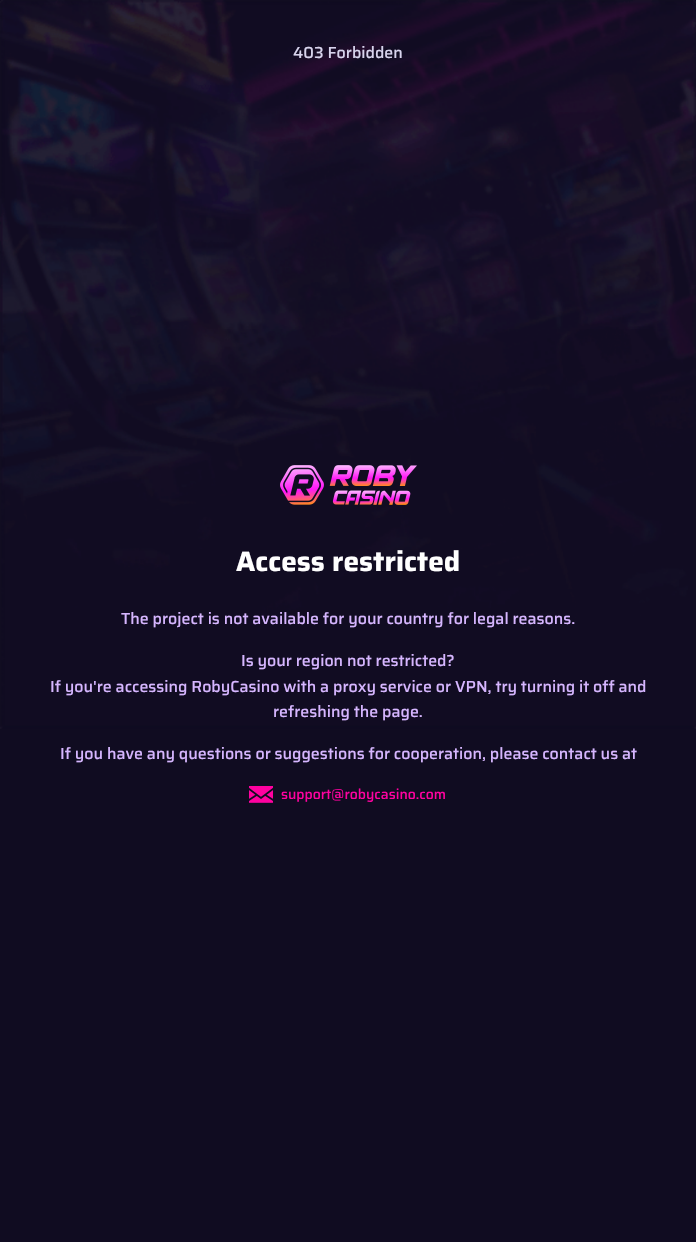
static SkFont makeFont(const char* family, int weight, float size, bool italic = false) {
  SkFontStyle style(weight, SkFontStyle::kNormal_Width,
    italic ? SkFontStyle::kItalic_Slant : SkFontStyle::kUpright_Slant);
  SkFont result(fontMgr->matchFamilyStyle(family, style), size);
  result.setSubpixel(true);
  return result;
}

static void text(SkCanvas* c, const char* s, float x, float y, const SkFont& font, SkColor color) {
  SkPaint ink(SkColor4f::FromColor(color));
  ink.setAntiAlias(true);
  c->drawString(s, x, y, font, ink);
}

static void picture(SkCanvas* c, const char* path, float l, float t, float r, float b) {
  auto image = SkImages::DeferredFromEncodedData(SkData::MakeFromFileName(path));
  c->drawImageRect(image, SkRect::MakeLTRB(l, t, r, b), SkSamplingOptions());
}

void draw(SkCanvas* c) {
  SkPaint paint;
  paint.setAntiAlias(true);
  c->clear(0xff100c21);
  picture(c, "img_01.png", 0, 0, 696, 729);
  SkFont face1 = makeFont("Saira", 500, 16);
  text(c, "403 Forbidden", 293, 58, face1, 0xffd8d4ed);
  picture(c, "img_02.png", 280, 465, 417, 505);
  SkFont face2 = makeFont("Saira", 700, 28);
  text(c, "Access restricted", 236, 571, face2, 0xffffffff);
  text(c, "The project is not available for your country for legal reasons.", 121, 624, face1, 0xffd6b6ff);
  text(c, "Is your region not restricted?", 241, 666, face1, 0xffd6b6ff);
  text(c, "If you're accessing RobyCasino with a proxy service or VPN, try turning it off and", 50, 692, face1, 0xffd6b6ff);
  text(c, "refreshing the page.", 273, 717, face1, 0xffd6b6ff);
  text(c, "If you have any questions or suggestions for cooperation, please contact us at", 60, 759, face1, 0xffd6b6ff);
  picture(c, "img_03.png", 249, 786, 273, 803);
  SkFont face3 = makeFont("Saira", 500, 14);
  text(c, "support@robycasino.com", 281, 799, face3, 0xffff01a0);
}
